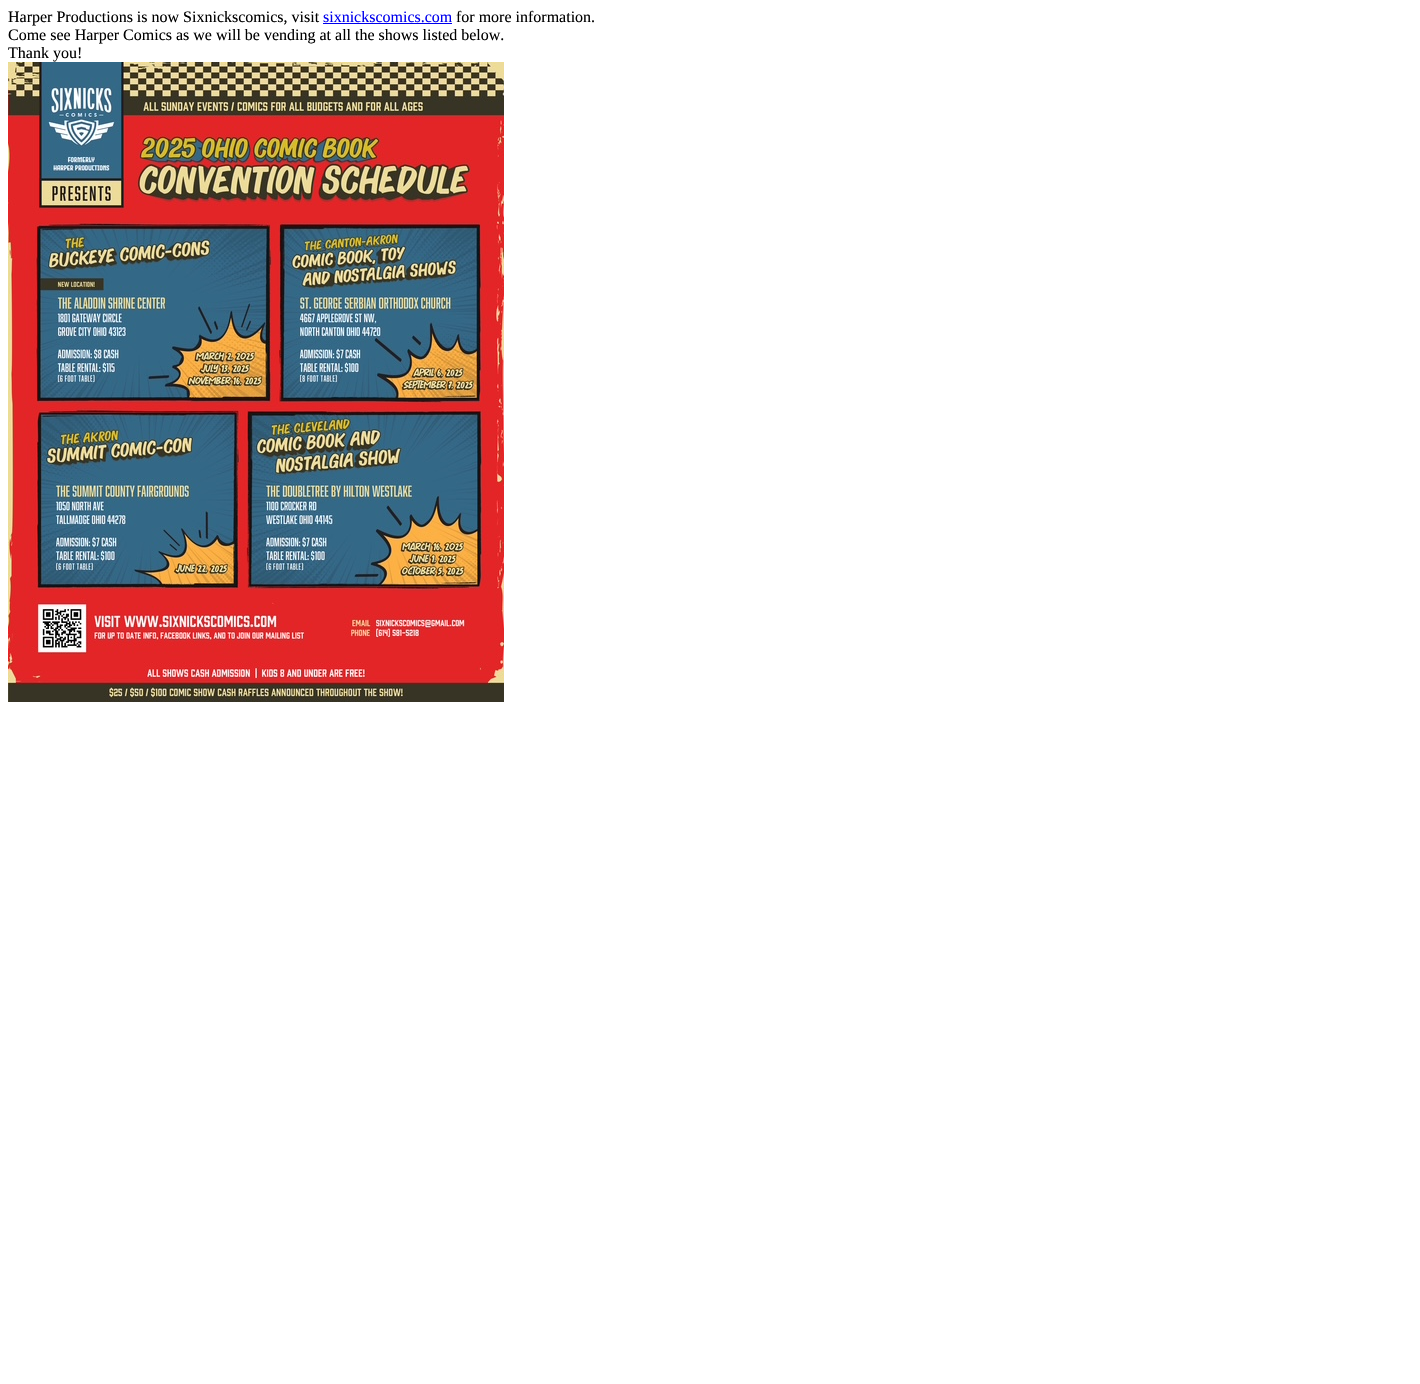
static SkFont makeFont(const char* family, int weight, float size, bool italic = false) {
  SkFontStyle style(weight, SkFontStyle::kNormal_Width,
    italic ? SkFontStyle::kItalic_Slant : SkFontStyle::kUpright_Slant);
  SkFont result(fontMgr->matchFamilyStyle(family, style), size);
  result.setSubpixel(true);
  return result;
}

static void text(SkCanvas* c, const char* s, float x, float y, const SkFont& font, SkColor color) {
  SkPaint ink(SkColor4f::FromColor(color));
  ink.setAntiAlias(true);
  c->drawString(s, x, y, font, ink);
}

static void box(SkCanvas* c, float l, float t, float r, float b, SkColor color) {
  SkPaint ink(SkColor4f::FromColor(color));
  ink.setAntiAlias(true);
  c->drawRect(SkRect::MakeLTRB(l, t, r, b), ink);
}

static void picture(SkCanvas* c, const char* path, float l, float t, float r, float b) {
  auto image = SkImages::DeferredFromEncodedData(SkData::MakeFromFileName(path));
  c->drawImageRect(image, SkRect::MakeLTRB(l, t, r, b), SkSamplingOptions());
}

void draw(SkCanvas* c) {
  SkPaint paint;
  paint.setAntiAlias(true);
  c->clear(0xffffffff);
  SkFont face1 = makeFont("Liberation Serif", 400, 16);
  text(c, "Harper Productions is now Sixnickscomics, visit", 8, 22, face1, 0xff000000);
  text(c, "sixnickscomics.com", 323, 22, face1, 0xff0000ee);
  box(c, 323, 23, 452, 24, 0xff0000ee);
  text(c, "for more information.", 456, 22, face1, 0xff000000);
  text(c, "Come see Harper Comics as we will be vending at all the shows listed below.", 8, 40, face1, 0xff000000);
  text(c, "Thank you!", 8, 58, face1, 0xff000000);
  picture(c, "img_01.png", 8, 62, 504, 702);
}
